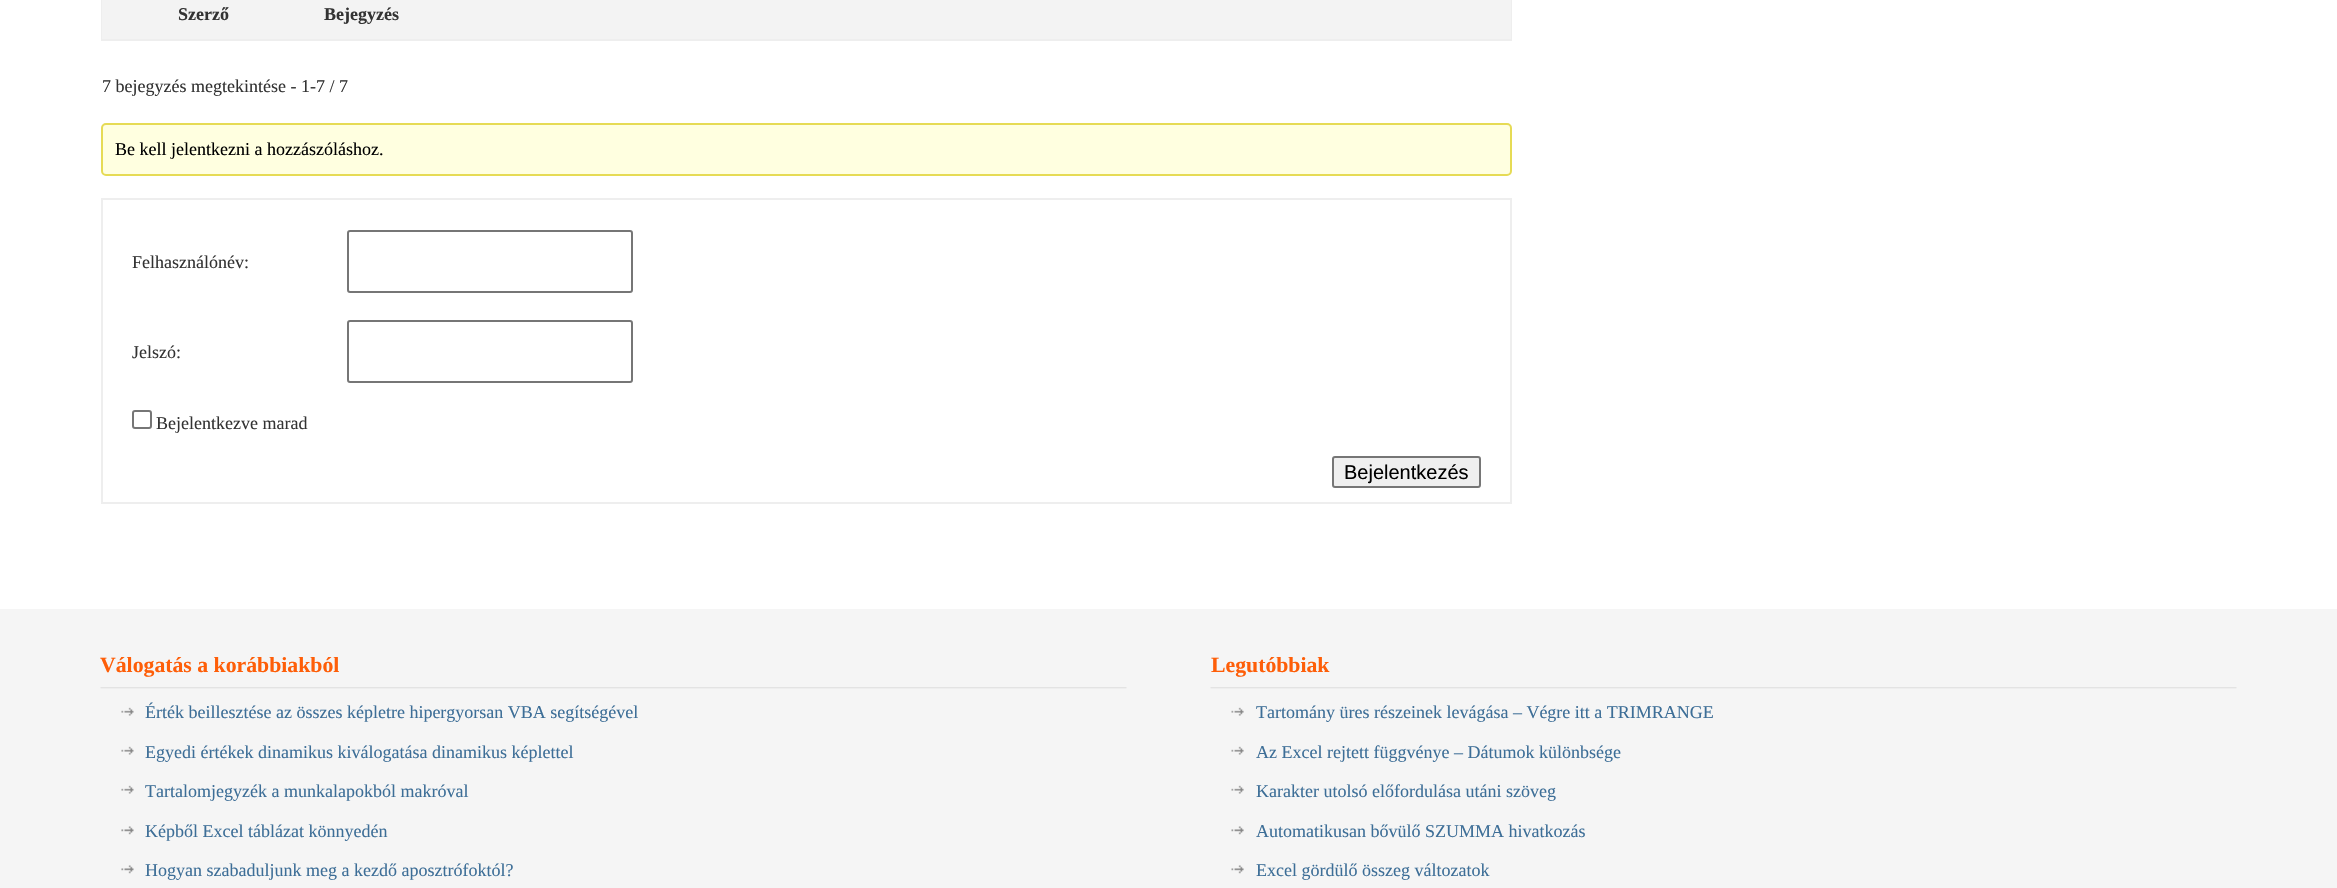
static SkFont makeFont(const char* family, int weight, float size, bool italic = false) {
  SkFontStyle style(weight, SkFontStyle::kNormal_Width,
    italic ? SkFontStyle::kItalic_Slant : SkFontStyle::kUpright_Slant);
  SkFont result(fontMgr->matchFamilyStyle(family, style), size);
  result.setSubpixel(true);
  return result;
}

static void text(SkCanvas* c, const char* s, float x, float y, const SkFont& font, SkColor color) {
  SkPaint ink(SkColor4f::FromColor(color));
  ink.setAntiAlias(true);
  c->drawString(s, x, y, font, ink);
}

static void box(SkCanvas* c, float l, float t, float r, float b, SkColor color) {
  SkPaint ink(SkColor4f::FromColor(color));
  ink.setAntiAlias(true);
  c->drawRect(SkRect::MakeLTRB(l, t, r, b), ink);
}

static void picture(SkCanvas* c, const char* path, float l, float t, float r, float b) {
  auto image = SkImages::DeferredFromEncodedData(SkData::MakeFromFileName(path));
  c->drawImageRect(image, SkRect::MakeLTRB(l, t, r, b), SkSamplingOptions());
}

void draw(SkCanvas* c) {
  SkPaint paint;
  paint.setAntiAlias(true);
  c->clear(0xffffffff);
  paint.setStyle(SkPaint::kStroke_Style);
  paint.setStrokeWidth(2);
  paint.setColor(0xffeeeeee);
  c->drawRect(SkRect::MakeLTRB(102, -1, 1511, 40), paint);
  box(c, 102, 0, 1511, 39, 0xfff3f3f3);
  SkFont face1 = makeFont("Liberation Serif", 700, 18);
  text(c, "Szerző", 178, 20, face1, 0xff333333);
  text(c, "Bejegyzés", 324, 20, face1, 0xff333333);
  SkFont face2 = makeFont("Liberation Serif", 400, 18);
  text(c, "7 bejegyzés megtekintése - 1-7 / 7", 102, 92, face2, 0xff333333);
  paint.setStyle(SkPaint::kFill_Style);
  paint.setColor(0xffffffe0);
  c->drawRoundRect(SkRect::MakeLTRB(102, 124, 1511, 175), 4, 4, paint);
  paint.setStyle(SkPaint::kStroke_Style);
  paint.setColor(0xffe6db55);
  c->drawRoundRect(SkRect::MakeLTRB(102, 124, 1511, 175), 4, 4, paint);
  text(c, "Be kell jelentkezni a hozzászóláshoz.", 115, 155, face2, 0xff000000);
  paint.setColor(0xffeeeeee);
  c->drawRect(SkRect::MakeLTRB(102, 199, 1511, 503), paint);
  text(c, "Felhasználónév:", 132, 268, face2, 0xff333333);
  paint.setColor(0xff767676);
  c->drawRoundRect(SkRect::MakeLTRB(348, 231, 632, 292), 2, 2, paint);
  text(c, "Jelszó:", 132, 358, face2, 0xff333333);
  c->drawRoundRect(SkRect::MakeLTRB(348, 321, 632, 382), 2, 2, paint);
  c->drawRoundRect(SkRect::MakeLTRB(133, 411, 151, 428), 2, 2, paint);
  text(c, "Bejelentkezve marad", 156, 429, face2, 0xff333333);
  paint.setStyle(SkPaint::kFill_Style);
  paint.setColor(0xffefefef);
  c->drawRoundRect(SkRect::MakeLTRB(1333, 457, 1480, 487), 2, 2, paint);
  paint.setStyle(SkPaint::kStroke_Style);
  paint.setColor(0xff767676);
  c->drawRoundRect(SkRect::MakeLTRB(1333, 457, 1480, 487), 2, 2, paint);
  SkFont face3 = makeFont("Liberation Sans", 400, 20);
  text(c, "Bejelentkezés", 1344, 479, face3, 0xff000000);
  box(c, 0, 609, 2337, 888, 0xfff5f5f5);
  picture(c, "img_01.png", 100, 687, 1127, 689);
  SkFont face4 = makeFont("Liberation Serif", 700, 21.75f);
  text(c, "Válogatás a korábbiakból", 100, 672, face4, 0xfffe5e08);
  picture(c, "img_02.png", 121, 707, 134, 716);
  text(c, "Érték beillesztése az összes képletre hipergyorsan VBA segítségével", 145, 718, face2, 0xff3d6e97);
  picture(c, "img_02.png", 121, 746, 134, 755);
  text(c, "Egyedi értékek dinamikus kiválogatása dinamikus képlettel", 145, 758, face2, 0xff3d6e97);
  picture(c, "img_02.png", 121, 785, 134, 794);
  text(c, "Tartalomjegyzék a munkalapokból makróval", 145, 797, face2, 0xff3d6e97);
  picture(c, "img_03.png", 121, 826, 134, 835);
  text(c, "Képből Excel táblázat könnyedén", 145, 837, face2, 0xff3d6e97);
  picture(c, "img_03.png", 121, 865, 134, 874);
  text(c, "Hogyan szabaduljunk meg a kezdő aposztrófoktól?", 145, 876, face2, 0xff3d6e97);
  picture(c, "img_01.png", 1210, 687, 2237, 689);
  text(c, "Legutóbbiak", 1211, 672, face4, 0xfffe5e08);
  picture(c, "img_04.png", 1231, 707, 1244, 716);
  text(c, "Tartomány üres részeinek levágása – Végre itt a TRIMRANGE", 1256, 718, face2, 0xff3d6e97);
  picture(c, "img_04.png", 1231, 746, 1244, 755);
  text(c, "Az Excel rejtett függvénye – Dátumok különbsége", 1256, 758, face2, 0xff3d6e97);
  picture(c, "img_04.png", 1231, 785, 1244, 794);
  text(c, "Karakter utolsó előfordulása utáni szöveg", 1256, 797, face2, 0xff3d6e97);
  picture(c, "img_05.png", 1231, 826, 1244, 835);
  text(c, "Automatikusan bővülő SZUMMA hivatkozás", 1256, 837, face2, 0xff3d6e97);
  picture(c, "img_05.png", 1231, 865, 1244, 874);
  text(c, "Excel gördülő összeg változatok", 1256, 876, face2, 0xff3d6e97);
}
